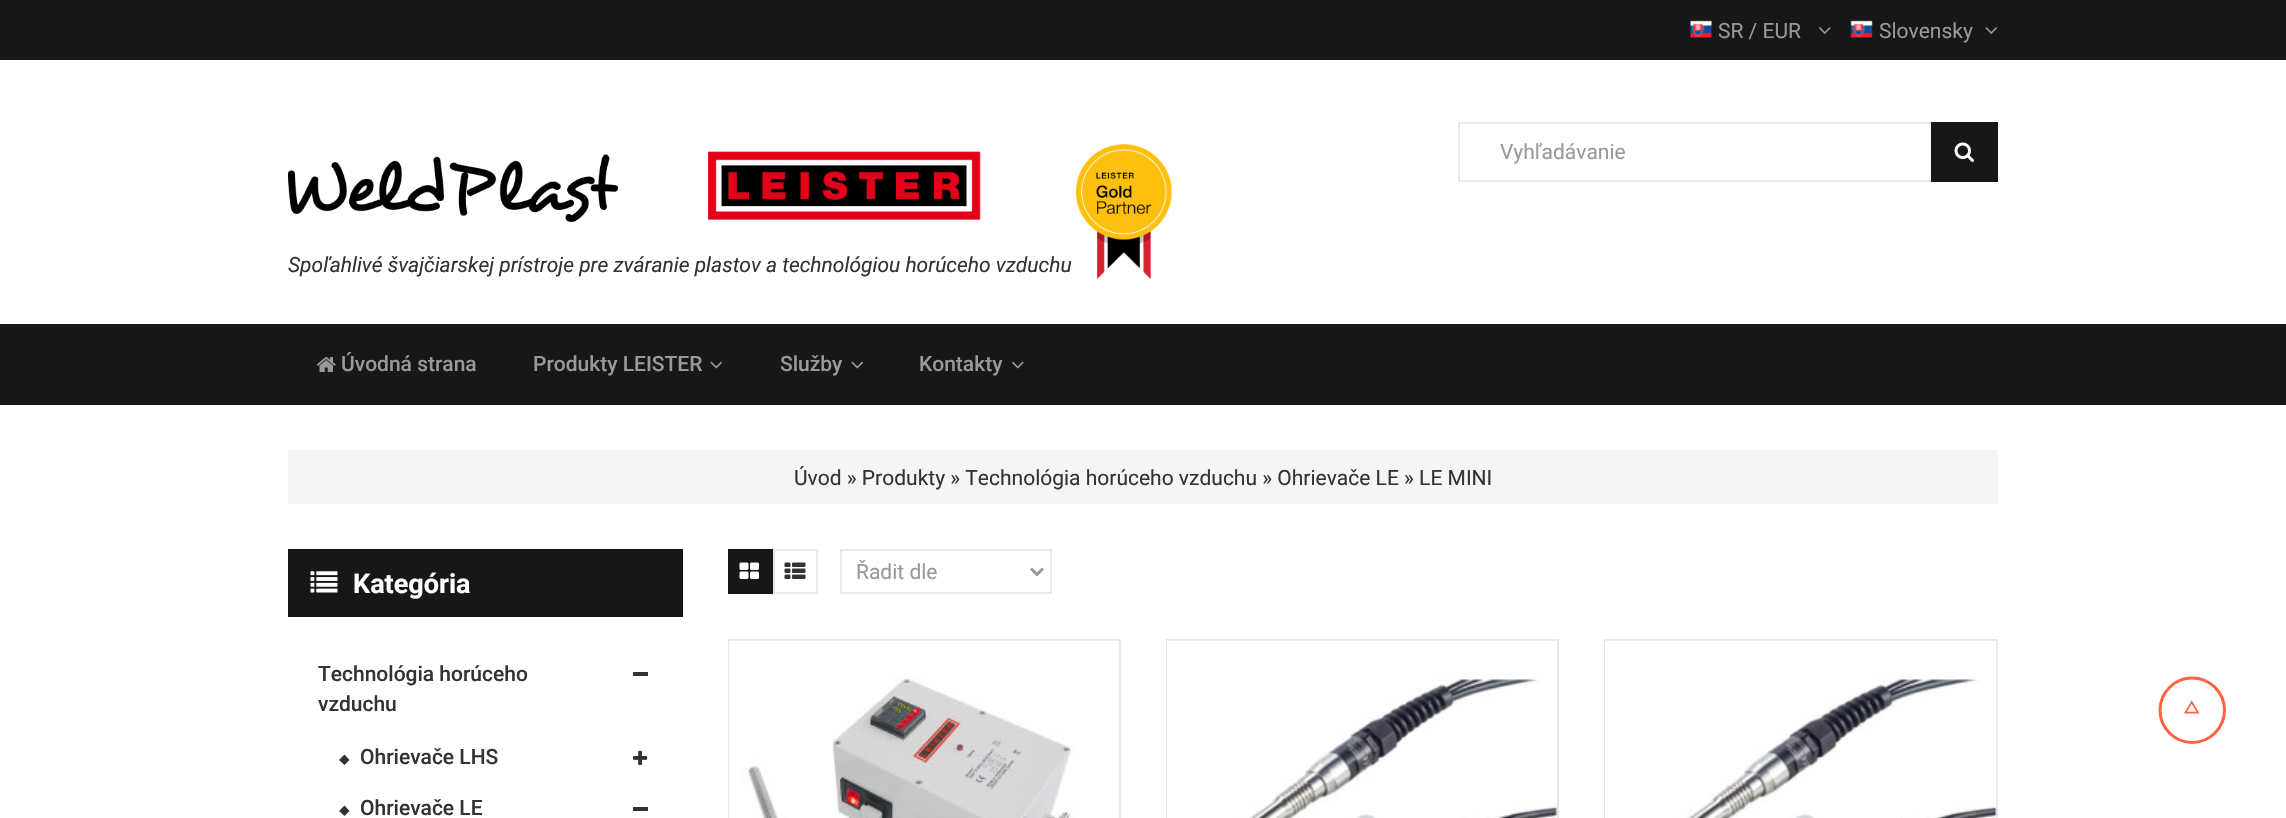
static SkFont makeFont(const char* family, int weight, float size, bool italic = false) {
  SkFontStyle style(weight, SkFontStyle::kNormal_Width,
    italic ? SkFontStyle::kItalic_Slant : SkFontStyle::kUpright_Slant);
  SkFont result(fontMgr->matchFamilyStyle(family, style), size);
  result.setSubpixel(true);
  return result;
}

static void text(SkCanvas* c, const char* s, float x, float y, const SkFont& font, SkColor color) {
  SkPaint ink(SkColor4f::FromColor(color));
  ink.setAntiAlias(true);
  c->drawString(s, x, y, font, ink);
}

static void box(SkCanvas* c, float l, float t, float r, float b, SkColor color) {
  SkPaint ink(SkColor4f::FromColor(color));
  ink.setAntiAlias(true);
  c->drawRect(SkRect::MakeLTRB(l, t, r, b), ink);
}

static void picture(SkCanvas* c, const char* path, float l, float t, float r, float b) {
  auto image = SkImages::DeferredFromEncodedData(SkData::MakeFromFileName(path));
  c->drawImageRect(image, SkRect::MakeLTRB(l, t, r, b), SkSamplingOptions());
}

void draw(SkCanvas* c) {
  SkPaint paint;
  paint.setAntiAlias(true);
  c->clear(0xffffffff);
  box(c, 0, 0, 2286, 60, 0xff171717);
  picture(c, "img_01.png", 1690, 20, 1712, 38);
  SkFont face1 = makeFont("Roboto", 400, 21);
  text(c, "SR / EUR", 1718, 38, face1, 0xff999999);
  picture(c, "img_02.png", 1819, 27, 1831, 34);
  picture(c, "img_03.png", 1850, 20, 1873, 38);
  text(c, "Slovensky", 1879, 38, face1, 0xff999999);
  picture(c, "img_04.png", 1985, 27, 1997, 34);
  paint.setStyle(SkPaint::kStroke_Style);
  paint.setStrokeWidth(2);
  paint.setColor(0xffe8e8e8);
  c->drawRect(SkRect::MakeLTRB(1459, 123, 1997, 181), paint);
  text(c, "Vyhľadávanie", 1500, 159, face1, 0xff999999);
  box(c, 1931, 122, 1998, 182, 0xff171717);
  picture(c, "img_05.png", 1954, 142, 1974, 162);
  picture(c, "img_06.png", 288, 154, 618, 222);
  picture(c, "img_07.png", 708, 144, 1172, 279);
  SkFont face2 = makeFont("Roboto", 400, 21, true);
  text(c, "Spoľahlivé švajčiarskej prístroje pre zváranie plastov a technológiou horúceho vzduchu", 288, 272, face2, 0xff333333);
  box(c, 0, 324, 2286, 405, 0xff171717);
  picture(c, "img_08.png", 316, 357, 336, 372);
  SkFont face3 = makeFont("Roboto", 500, 21);
  text(c, "Úvodná strana", 341, 371, face3, 0xff999999);
  text(c, "Produkty LEISTER", 533, 371, face3, 0xff999999);
  picture(c, "img_09.png", 710, 361, 722, 369);
  text(c, "Služby", 780, 371, face3, 0xff999999);
  picture(c, "img_09.png", 851, 361, 863, 369);
  text(c, "Kontakty", 919, 371, face3, 0xff999999);
  picture(c, "img_10.png", 1012, 361, 1024, 369);
  box(c, 288, 450, 1998, 504, 0xfff5f5f5);
  text(c, "Úvod » Produkty » Technológia horúceho vzduchu » Ohrievače LE » LE MINI", 794, 485, face1, 0xff333333);
  box(c, 728, 549, 773, 594, 0xff171717);
  picture(c, "img_11.png", 739, 562, 759, 579);
  c->drawRect(SkRect::MakeLTRB(774, 550, 817, 593), paint);
  picture(c, "img_12.png", 784, 562, 806, 579);
  c->drawRect(SkRect::MakeLTRB(841, 550, 1051, 593), paint);
  paint.setStrokeWidth(3);
  paint.setColor(0xff999999);
  c->drawPath(SkPathBuilder().moveTo(1031, 568.5f).lineTo(1037, 574.5f).lineTo(1043, 568.5f).detach(), paint);
  text(c, "Řadit dle", 856, 579, face1, 0xff999999);
  paint.setStrokeWidth(2);
  paint.setColor(0xffe8e8e8);
  c->drawRect(SkRect::MakeLTRB(729, 640, 1120, 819), paint);
  picture(c, "img_13.png", 729, 640, 1119, 818);
  c->drawRect(SkRect::MakeLTRB(1167, 640, 1558, 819), paint);
  picture(c, "img_14.png", 1167, 640, 1557, 818);
  c->drawRect(SkRect::MakeLTRB(1605, 640, 1997, 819), paint);
  picture(c, "img_15.png", 1605, 640, 1997, 818);
  box(c, 288, 549, 683, 617, 0xff171717);
  picture(c, "img_16.png", 310, 571, 338, 593);
  SkFont face4 = makeFont("Roboto", 700, 27);
  text(c, "Kategória", 353, 593, face4, 0xffffffff);
  text(c, "Technológia horúceho", 318, 681, face3, 0xff333333);
  text(c, "vzduchu", 318, 711, face3, 0xff333333);
  box(c, 633, 672, 648, 676, 0xff333333);
  paint.setStyle(SkPaint::kFill_Style);
  paint.setColor(0xff333333);
  c->drawPath(SkPathBuilder().moveTo(344.5f, 754.5f).lineTo(349.5f, 760).lineTo(344.5f, 765).lineTo(339, 760).close().detach(), paint);
  text(c, "Ohrievače LHS", 360, 764, face3, 0xff333333);
  picture(c, "img_17.png", 633, 750, 648, 765);
  c->drawPath(SkPathBuilder().moveTo(344.5f, 805.5f).lineTo(349.5f, 811).lineTo(344.5f, 816).lineTo(339, 811).close().detach(), paint);
  text(c, "Ohrievače LE", 360, 815, face3, 0xff333333);
  box(c, 633, 807, 648, 811, 0xff333333);
  paint.setStyle(SkPaint::kStroke_Style);
  paint.setStrokeWidth(3);
  paint.setColor(0xffff623f);
  c->drawPath(SkPathBuilder().moveTo(2160, 710).cubicTo(2160, 692.5f, 2174.5f, 678, 2192, 678).cubicTo(2210, 678, 2224.5f, 692.5f, 2224.5f, 710).cubicTo(2224.5f, 728, 2210, 742.5f, 2192, 742.5f).cubicTo(2174.5f, 742.5f, 2160, 728, 2160, 710).close().detach(), paint);
  picture(c, "img_18.png", 2184, 700, 2200, 714);
}
